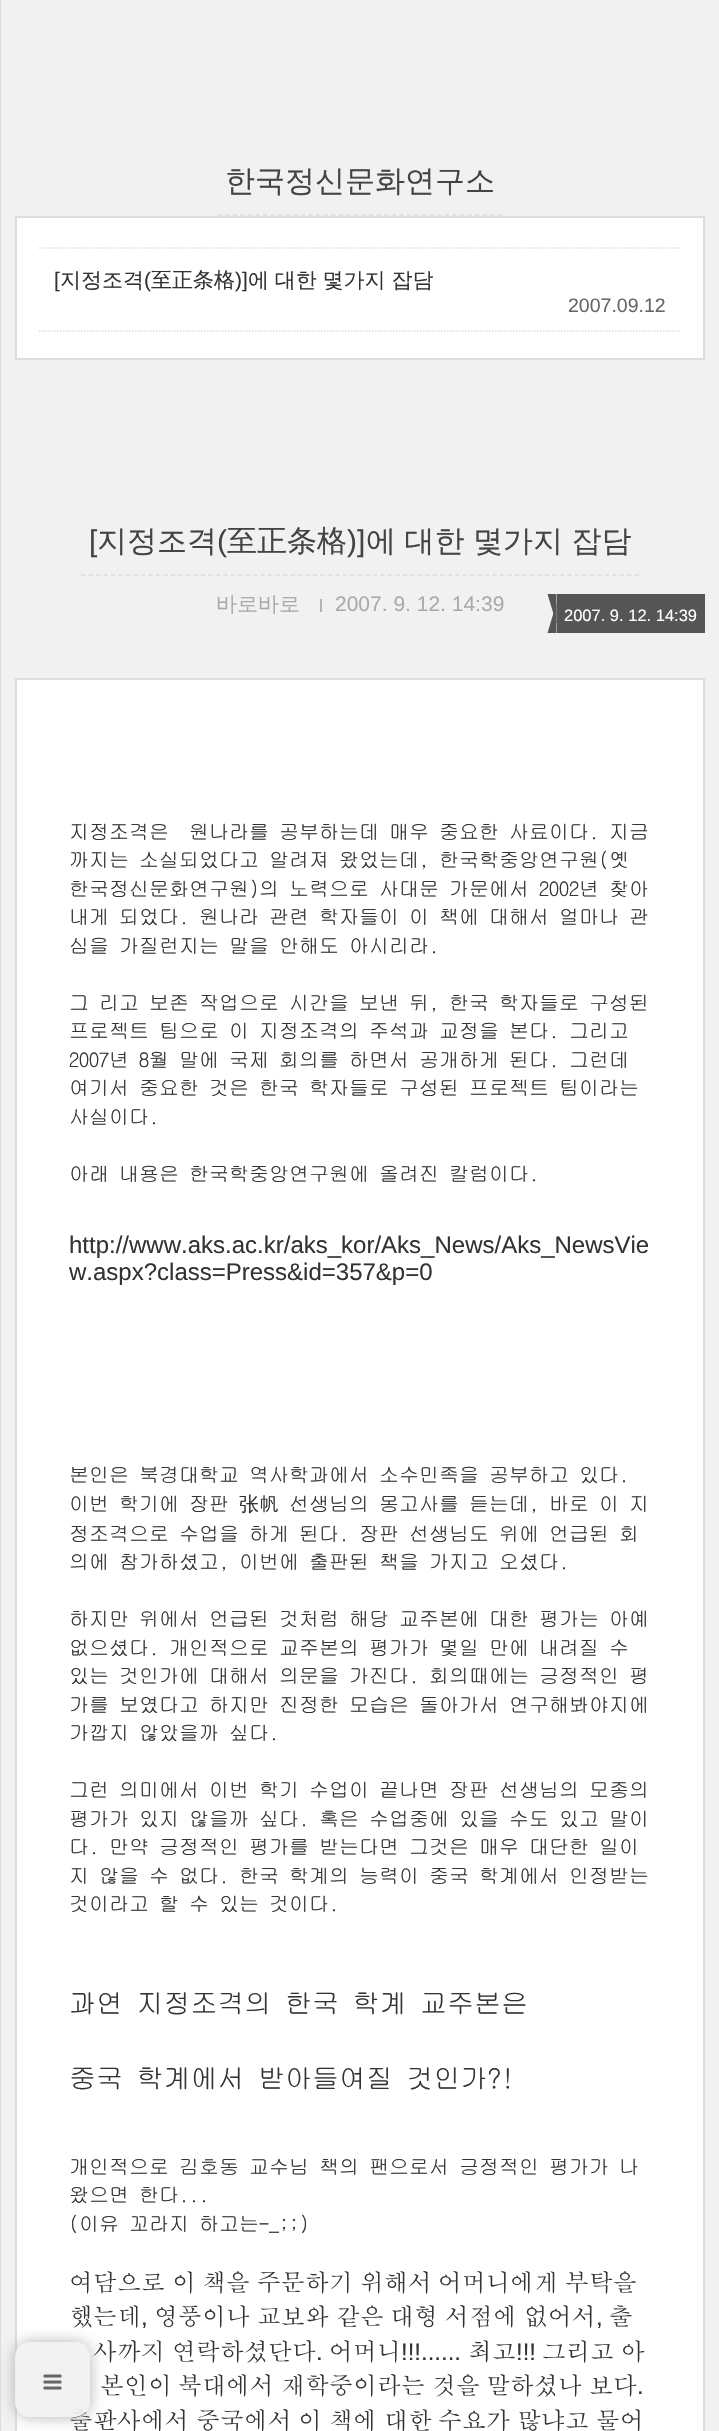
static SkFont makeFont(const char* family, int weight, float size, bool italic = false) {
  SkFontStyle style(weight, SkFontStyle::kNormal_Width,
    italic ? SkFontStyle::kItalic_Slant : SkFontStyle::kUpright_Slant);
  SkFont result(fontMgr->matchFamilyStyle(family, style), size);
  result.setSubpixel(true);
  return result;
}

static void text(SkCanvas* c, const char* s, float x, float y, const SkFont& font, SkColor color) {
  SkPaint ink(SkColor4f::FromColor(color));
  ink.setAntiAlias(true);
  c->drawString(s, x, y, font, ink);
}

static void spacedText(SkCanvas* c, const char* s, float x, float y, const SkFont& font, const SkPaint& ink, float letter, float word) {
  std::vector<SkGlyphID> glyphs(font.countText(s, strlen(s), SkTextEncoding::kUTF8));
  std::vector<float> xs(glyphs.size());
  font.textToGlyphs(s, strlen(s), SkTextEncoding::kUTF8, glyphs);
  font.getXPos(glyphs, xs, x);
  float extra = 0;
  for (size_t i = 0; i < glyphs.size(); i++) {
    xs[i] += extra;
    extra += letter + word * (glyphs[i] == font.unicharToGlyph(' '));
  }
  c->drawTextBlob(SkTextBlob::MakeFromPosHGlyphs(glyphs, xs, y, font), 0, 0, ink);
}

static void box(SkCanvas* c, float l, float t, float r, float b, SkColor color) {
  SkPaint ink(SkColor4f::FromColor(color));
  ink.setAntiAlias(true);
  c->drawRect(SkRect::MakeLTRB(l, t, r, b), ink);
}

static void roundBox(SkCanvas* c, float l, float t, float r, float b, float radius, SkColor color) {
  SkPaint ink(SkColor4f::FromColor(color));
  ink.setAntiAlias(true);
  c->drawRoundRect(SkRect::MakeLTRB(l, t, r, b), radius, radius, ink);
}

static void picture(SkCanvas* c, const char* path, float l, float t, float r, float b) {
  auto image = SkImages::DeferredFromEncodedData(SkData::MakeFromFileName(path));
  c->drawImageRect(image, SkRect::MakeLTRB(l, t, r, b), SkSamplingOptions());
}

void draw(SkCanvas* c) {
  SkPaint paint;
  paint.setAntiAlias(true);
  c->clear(0xfff1f1f1);
  box(c, 0, 0, 1, 2431, 0xffdddddd);
  paint.setStyle(SkPaint::kStroke_Style);
  paint.setStrokeWidth(1.5f);
  paint.setColor(0xffdddddd);
  paint.setPathEffect(SkDashPathEffect::Make({{4.5f, 3.07f}}, 0));
  c->drawPath(SkPathBuilder().moveTo(217.5f, 215).lineTo(502.5f, 215).detach(), paint);
  paint.setPathEffect(nullptr);
  SkFont face1 = makeFont("WenQuanYi Zen Hei", 500, 30);
  text(c, "한국정신문화연구소", 225, 191, face1, 0xff444444);
  paint.setStyle(SkPaint::kFill_Style);
  paint.setColor(0xffffffff);
  c->drawRect(SkRect::MakeLTRB(16, 217, 704, 359), paint);
  paint.setStyle(SkPaint::kStroke_Style);
  paint.setStrokeWidth(2);
  paint.setColor(0xffdddddd);
  c->drawRect(SkRect::MakeLTRB(16, 217, 704, 359), paint);
  paint.setStrokeWidth(1.5f);
  paint.setPathEffect(SkDashPathEffect::Make({{1.5f, 1.5f}}, 0));
  c->drawPath(SkPathBuilder().moveTo(39, 248).lineTo(681, 248).detach(), paint);
  paint.setPathEffect(nullptr);
  paint.setPathEffect(SkDashPathEffect::Make({{1.5f, 1.5f}}, 0));
  c->drawPath(SkPathBuilder().moveTo(39, 331).lineTo(681, 331).detach(), paint);
  paint.setPathEffect(nullptr);
  SkFont face2 = makeFont("Liberation Sans", 400, 21);
  text(c, "[", 54, 287, face2, 0xff333333);
  SkFont face3 = makeFont("WenQuanYi Zen Hei", 500, 21);
  text(c, "지정조격", 60, 287, face3, 0xff333333);
  text(c, "(", 144, 287, face2, 0xff333333);
  text(c, "至正条格", 151, 287, face3, 0xff333333);
  text(c, ")]", 235, 287, face2, 0xff333333);
  paint.setStyle(SkPaint::kFill_Style);
  paint.setColor(0xff333333);
  spacedText(c, "에 대한 몇가지 잡담", 248, 287, face3, paint, 0, -0.5f);
  SkFont face4 = makeFont("Liberation Sans", 400, 19.5f);
  text(c, "2007.09.12", 568, 312, face4, 0xff666666);
  paint.setStyle(SkPaint::kStroke_Style);
  paint.setColor(0xffdddddd);
  paint.setPathEffect(SkDashPathEffect::Make({{4.5f, 2.98f}}, 0));
  c->drawPath(SkPathBuilder().moveTo(81, 575).lineTo(639, 575).detach(), paint);
  paint.setPathEffect(nullptr);
  SkFont face5 = makeFont("Liberation Sans", 400, 30);
  text(c, "[", 89, 551, face5, 0xff444444);
  text(c, "지정조격", 97, 551, face1, 0xff444444);
  text(c, "(", 217, 551, face5, 0xff444444);
  text(c, "至正条格", 227, 551, face1, 0xff444444);
  text(c, ")]", 347, 551, face5, 0xff444444);
  paint.setStyle(SkPaint::kFill_Style);
  paint.setColor(0xff444444);
  spacedText(c, "에 대한 몇가지 잡담", 366, 551, face1, paint, 0, -0.5f);
  text(c, "바로바로", 216, 611, face3, 0xffaaaaaa);
  box(c, 320, 599, 322, 612, 0xffb3b3b3);
  text(c, "2007. 9. 12. 14:39", 335, 611, face2, 0xffaaaaaa);
  box(c, 557, 594, 705, 633, 0xff555555);
  paint.setColor(0xff555555);
  c->drawPath(SkPathBuilder().moveTo(547.5f, 594).lineTo(556.5f, 594).lineTo(556.5f, 624).close().detach(), paint);
  c->drawPath(SkPathBuilder().moveTo(556.5f, 633).lineTo(547.5f, 633).lineTo(556.5f, 603).close().detach(), paint);
  SkFont face6 = makeFont("Liberation Sans", 400, 16.5f);
  text(c, "2007. 9. 12. 14:39", 564, 621, face6, 0xffffffff);
  paint.setColor(0xffffffff);
  c->drawRect(SkRect::MakeLTRB(16, 679, 704, 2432), paint);
  paint.setStyle(SkPaint::kStroke_Style);
  paint.setStrokeWidth(2);
  paint.setColor(0xffdddddd);
  c->drawRect(SkRect::MakeLTRB(16, 679, 704, 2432), paint);
  SkFont face7 = makeFont("GulimChe", 400, 20);
  text(c, "지정조격은", 69, 839, face7, 0xff333333);
  text(c, "원나라를 공부하는데 매우 중요한 사료이다. 지금", 189, 839, face7, 0xff333333);
  text(c, "까지는 소실되었다고 알려져 왔었는데, 한국학중앙연구원(옛", 69, 867, face7, 0xff333333);
  text(c, "한국정신문화연구원)의 노력으로 사대문 가문에서 2002년 찾아", 69, 896, face7, 0xff333333);
  text(c, "내게 되었다. 원나라 관련 학자들이 이 책에 대해서 얼마나 관", 69, 924, face7, 0xff333333);
  text(c, "심을 가질런지는 말을 안해도 아시리라.", 69, 953, face7, 0xff333333);
  text(c, "그 리고 보존 작업으로 시간을 보낸 뒤, 한국 학자들로 구성된", 69, 1010, face7, 0xff333333);
  text(c, "프로젝트 팀으로 이 지정조격의 주석과 교정을 본다. 그리고", 69, 1038, face7, 0xff333333);
  text(c, "2007년 8월 말에 국제 회의를 하면서 공개하게 된다. 그런데", 69, 1067, face7, 0xff333333);
  text(c, "여기서 중요한 것은 한국 학자들로 구성된 프로젝트 팀이라는", 69, 1095, face7, 0xff333333);
  text(c, "사실이다.", 69, 1124, face7, 0xff333333);
  text(c, "아래 내용은 한국학중앙연구원에 올려진 칼럼이다.", 69, 1181, face7, 0xff333333);
  SkFont face8 = makeFont("Liberation Sans", 400, 24);
  text(c, "http://www.aks.ac.kr/aks_kor/Aks_News/Aks_NewsVie", 69, 1253, face8, 0xff333333);
  text(c, "w.aspx?class=Press&id=357&p=0", 69, 1280, face8, 0xff333333);
  text(c, "본인은 북경대학교 역사학과에서 소수민족을 공부하고 있다.", 69, 1482, face7, 0xff333333);
  text(c, "이번 학기에 장판", 69, 1511, face7, 0xff333333);
  SkFont face9 = makeFont("WenQuanYi Zen Hei", 500, 20);
  text(c, "张", 239, 1511, face9, 0xff333333);
  text(c, "帆 선생님의 몽고사를 듣는데, 바로 이 지", 259, 1511, face7, 0xff333333);
  text(c, "정조격으로 수업을 하게 된다. 장판 선생님도 위에 언급된 회", 69, 1541, face7, 0xff333333);
  text(c, "의에 참가하셨고, 이번에 출판된 책을 가지고 오셨다.", 69, 1569, face7, 0xff333333);
  text(c, "하지만 위에서 언급된 것처럼 해당 교주본에 대한 평가는 아예", 69, 1626, face7, 0xff333333);
  text(c, "없으셨다. 개인적으로 교주본의 평가가 몇일 만에 내려질 수", 69, 1655, face7, 0xff333333);
  text(c, "있는 것인가에 대해서 의문을 가진다. 회의때에는 긍정적인 평", 69, 1683, face7, 0xff333333);
  text(c, "가를 보였다고 하지만 진정한 모습은 돌아가서 연구해봐야지에", 69, 1712, face7, 0xff333333);
  text(c, "가깝지 않았을까 싶다.", 69, 1740, face7, 0xff333333);
  text(c, "그런 의미에서 이번 학기 수업이 끝나면 장판 선생님의 모종의", 69, 1797, face7, 0xff333333);
  text(c, "평가가 있지 않을까 싶다. 혹은 수업중에 있을 수도 있고 말이", 69, 1826, face7, 0xff333333);
  text(c, "다. 만약 긍정적인 평가를 받는다면 그것은 매우 대단한 일이", 69, 1854, face7, 0xff333333);
  text(c, "지 않을 수 없다. 한국 학계의 능력이 중국 학계에서 인정받는", 69, 1883, face7, 0xff333333);
  text(c, "것이라고 할 수 있는 것이다.", 69, 1911, face7, 0xff333333);
  SkFont face10 = makeFont("GulimChe", 400, 27);
  text(c, "과연 지정조격의 한국 학계 교주본은", 69, 2013, face10, 0xff333333);
  text(c, "중국 학계에서 받아들여질 것인가?!", 69, 2088, face10, 0xff333333);
  text(c, "개인적으로 김호동 교수님 책의 팬으로서 긍정적인 평가가 나", 69, 2174, face7, 0xff333333);
  text(c, "왔으면 한다...", 69, 2202, face7, 0xff333333);
  text(c, "(이유 꼬라지 하고는-_;;)", 69, 2231, face7, 0xff333333);
  SkFont face11 = makeFont("Batang", 400, 24);
  text(c, "여담으로", 69, 2291, face11, 0xff333333);
  text(c, "이", 172, 2291, face11, 0xff333333);
  text(c, "책을", 202, 2291, face11, 0xff333333);
  text(c, "주문하기", 257, 2291, face11, 0xff333333);
  text(c, "위해서", 360, 2291, face11, 0xff333333);
  text(c, "어머니에게", 438, 2291, face11, 0xff333333);
  text(c, "부탁을", 565, 2291, face11, 0xff333333);
  text(c, "했는데", 69, 2325, face11, 0xff333333);
  text(c, ",", 141, 2325, face8, 0xff333333);
  text(c, "영풍이나", 154, 2325, face11, 0xff333333);
  text(c, "교보와", 257, 2325, face11, 0xff333333);
  text(c, "같은", 336, 2325, face11, 0xff333333);
  text(c, "대형", 390, 2325, face11, 0xff333333);
  text(c, "서점에", 445, 2325, face11, 0xff333333);
  text(c, "없어서", 524, 2325, face11, 0xff333333);
  text(c, ",", 596, 2325, face8, 0xff333333);
  text(c, "출", 609, 2325, face11, 0xff333333);
  text(c, "사까지", 93, 2360, face11, 0xff333333);
  text(c, "연락하셨단다", 172, 2360, face11, 0xff333333);
  text(c, ".", 316, 2360, face8, 0xff333333);
  text(c, "어머니", 329, 2360, face11, 0xff333333);
  text(c, "!!!......", 401, 2360, face8, 0xff333333);
  text(c, "최고", 468, 2360, face11, 0xff333333);
  text(c, "!!!", 516, 2360, face8, 0xff333333);
  text(c, "그리고", 542, 2360, face11, 0xff333333);
  text(c, "아", 621, 2360, face11, 0xff333333);
  text(c, "본인이", 100, 2394, face11, 0xff333333);
  text(c, "북대에서", 178, 2394, face11, 0xff333333);
  text(c, "재학중이라는", 281, 2394, face11, 0xff333333);
  text(c, "것을", 432, 2394, face11, 0xff333333);
  text(c, "말하셨나", 486, 2394, face11, 0xff333333);
  text(c, "보다", 589, 2394, face11, 0xff333333);
  text(c, ".", 637, 2394, face8, 0xff333333);
  text(c, "출판사에서", 69, 2429, face11, 0xff333333);
  text(c, "중국에서", 196, 2429, face11, 0xff333333);
  text(c, "이", 298, 2429, face11, 0xff333333);
  text(c, "책에", 329, 2429, face11, 0xff333333);
  text(c, "대한", 384, 2429, face11, 0xff333333);
  text(c, "수요가", 438, 2429, face11, 0xff333333);
  text(c, "많냐고", 517, 2429, face11, 0xff333333);
  text(c, "물어", 596, 2429, face11, 0xff333333);
  c->save();
  c->clipPath(SkPathBuilder(SkPathFillType::kEvenOdd).moveTo(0, 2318).lineTo(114, 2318).lineTo(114, 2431).lineTo(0, 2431).close().moveTo(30, 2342).lineTo(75, 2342).cubicTo(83.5f, 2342, 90, 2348.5f, 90, 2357).lineTo(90, 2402).cubicTo(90, 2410.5f, 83.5f, 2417, 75, 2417).lineTo(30, 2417).cubicTo(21.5f, 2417, 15, 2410.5f, 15, 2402).lineTo(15, 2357).cubicTo(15, 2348.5f, 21.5f, 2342, 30, 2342).close().detach(), true);
  paint.setStyle(SkPaint::kFill_Style);
  paint.setColor(0xe6aaaaaa);
  paint.setMaskFilter(SkMaskFilter::MakeBlur(kNormal_SkBlurStyle, 7.5f));
  c->drawRoundRect(SkRect::MakeLTRB(15, 2342, 90, 2417), 15, 15, paint);
  paint.setMaskFilter(nullptr);
  c->restore();
  roundBox(c, 15, 2342, 90, 2417, 15, 0xe6f1f1f1);
  picture(c, "img_01.png", 43, 2374, 62, 2390);
}
